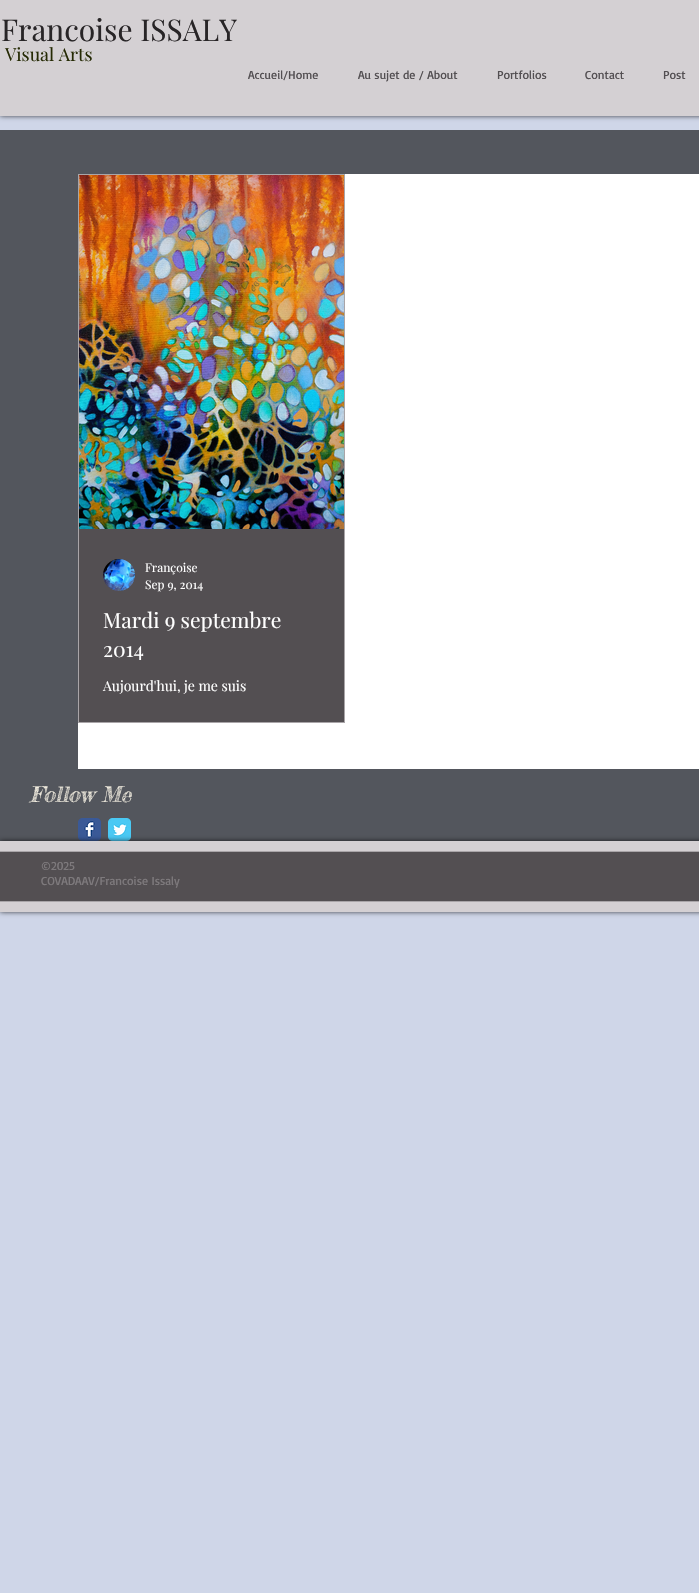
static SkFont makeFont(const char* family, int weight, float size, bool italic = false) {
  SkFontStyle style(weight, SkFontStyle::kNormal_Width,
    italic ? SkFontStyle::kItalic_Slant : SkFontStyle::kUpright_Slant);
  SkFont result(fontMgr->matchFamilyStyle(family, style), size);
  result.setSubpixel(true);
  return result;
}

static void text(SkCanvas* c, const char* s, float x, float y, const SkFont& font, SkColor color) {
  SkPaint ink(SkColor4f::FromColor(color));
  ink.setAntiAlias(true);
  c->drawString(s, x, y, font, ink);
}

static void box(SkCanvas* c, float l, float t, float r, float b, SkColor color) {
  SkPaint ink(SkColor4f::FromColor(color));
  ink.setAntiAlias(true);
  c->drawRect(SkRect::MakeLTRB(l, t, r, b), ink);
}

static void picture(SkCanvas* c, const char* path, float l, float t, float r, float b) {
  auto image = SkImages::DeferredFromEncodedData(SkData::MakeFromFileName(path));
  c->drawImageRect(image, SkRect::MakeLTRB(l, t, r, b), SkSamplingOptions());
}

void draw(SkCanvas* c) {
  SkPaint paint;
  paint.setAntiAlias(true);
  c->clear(0xffcfd6e8);
  paint.setColor(0xb3000000);
  paint.setMaskFilter(SkMaskFilter::MakeBlur(kNormal_SkBlurStyle, 2.5f));
  c->drawRect(SkRect::MakeLTRB(0, 0, 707, 116), paint);
  paint.setMaskFilter(nullptr);
  box(c, 0, 0, 699, 116, 0xffd4d0d3);
  SkFont face1 = makeFont("Playfair Display", 400, 30);
  text(c, "Francoise ISSALY", 1, 41, face1, 0xff282527);
  SkFont face2 = makeFont("Playfair Display", 400, 18);
  text(c, "Visual Arts", 5, 61, face2, 0xff252a04);
  SkFont face3 = makeFont("Basic", 400, 12);
  text(c, "Accueil/Home", 248, 79, face3, 0xff534f52);
  text(c, "Au sujet de / About", 358, 79, face3, 0xff534f52);
  text(c, "Portfolios", 497, 79, face3, 0xff534f52);
  text(c, "Contact", 585, 79, face3, 0xff534f52);
  text(c, "Post", 663, 79, face3, 0xff534f52);
  box(c, 0, 130, 699, 841, 0xff53565d);
  box(c, 78, 174, 699, 769, 0xffffffff);
  paint.setStyle(SkPaint::kStroke_Style);
  paint.setStrokeWidth(1);
  paint.setColor(0xffa9a5a8);
  c->drawRect(SkRect::MakeLTRB(78.5f, 174.5f, 344.5f, 722.5f), paint);
  picture(c, "img_01.png", 79, 175, 344, 529);
  box(c, 79, 529, 344, 722, 0xff534f52);
  picture(c, "img_02.png", 103, 559, 135, 591);
  SkFont face4 = makeFont("Playfair Display", 400, 12);
  text(c, "Françoise", 145, 572, face4, 0xffffffff);
  text(c, "Sep 9, 2014", 145, 589, face4, 0xffffffff);
  SkFont face5 = makeFont("Playfair Display", 400, 21);
  text(c, "Mardi 9 septembre", 103, 628, face5, 0xffffffff);
  text(c, "2014", 103, 657, face5, 0xffffffff);
  SkFont face6 = makeFont("Playfair Display", 400, 14);
  text(c, "Aujourd'hui, je me suis", 103, 691, face6, 0xffffffff);
  SkFont face7 = makeFont("Fredericka the Great", 400, 21, true);
  text(c, "Follow Me", 30, 802, face7, 0xfff3eee1);
  picture(c, "img_03.png", 78, 818, 101, 841);
  picture(c, "img_04.png", 108, 818, 131, 841);
  paint.setStyle(SkPaint::kFill_Style);
  paint.setColor(0xb3000000);
  paint.setMaskFilter(SkMaskFilter::MakeBlur(kNormal_SkBlurStyle, 2.5f));
  c->drawRect(SkRect::MakeLTRB(0, 841, 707, 912), paint);
  paint.setMaskFilter(nullptr);
  box(c, 0, 841, 699, 912, 0xffd4d0d3);
  paint.setColor(0xff534f52);
  c->drawRect(SkRect::MakeLTRB(-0.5f, 851.5f, 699.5f, 901.5f), paint);
  paint.setStyle(SkPaint::kStroke_Style);
  paint.setColor(0xffa9a5a8);
  c->drawRect(SkRect::MakeLTRB(-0.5f, 851.5f, 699.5f, 901.5f), paint);
  text(c, "©2025", 41, 870, face3, 0xff7e7a7d);
  text(c, "COVADAAV/Francoise Issaly", 41, 885, face3, 0xff7e7a7d);
}
